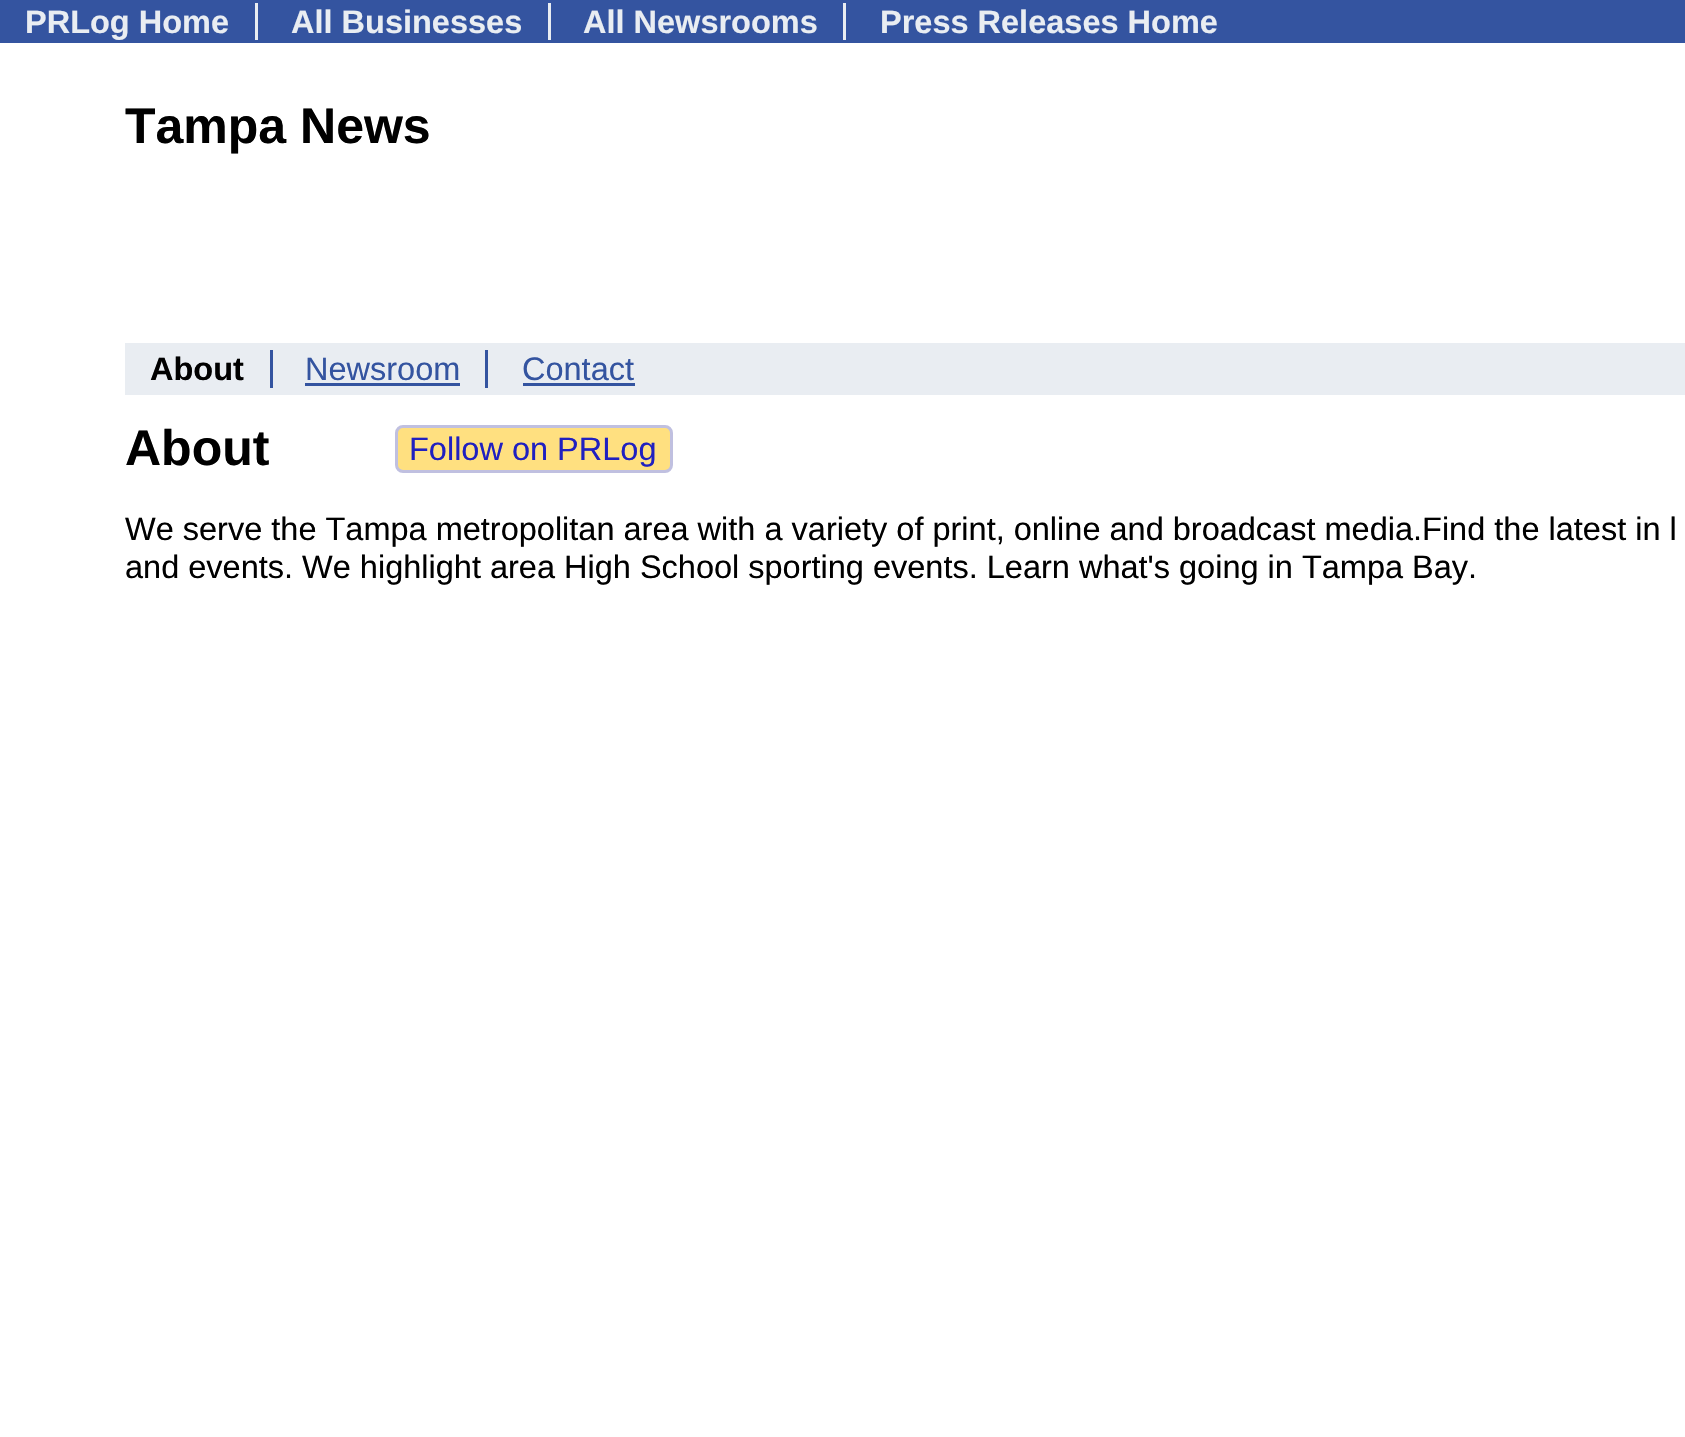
static SkFont makeFont(const char* family, int weight, float size, bool italic = false) {
  SkFontStyle style(weight, SkFontStyle::kNormal_Width,
    italic ? SkFontStyle::kItalic_Slant : SkFontStyle::kUpright_Slant);
  SkFont result(fontMgr->matchFamilyStyle(family, style), size);
  result.setSubpixel(true);
  return result;
}

static void text(SkCanvas* c, const char* s, float x, float y, const SkFont& font, SkColor color) {
  SkPaint ink(SkColor4f::FromColor(color));
  ink.setAntiAlias(true);
  c->drawString(s, x, y, font, ink);
}

static void box(SkCanvas* c, float l, float t, float r, float b, SkColor color) {
  SkPaint ink(SkColor4f::FromColor(color));
  ink.setAntiAlias(true);
  c->drawRect(SkRect::MakeLTRB(l, t, r, b), ink);
}

void draw(SkCanvas* c) {
  SkPaint paint;
  paint.setAntiAlias(true);
  c->clear(0xffffffff);
  box(c, 0, 0, 1685, 43, 0xff3454a0);
  box(c, 255, 3, 258, 40, 0xffe9edf2);
  SkFont face1 = makeFont("Liberation Sans", 700, 32.5f);
  text(c, "PRLog Home", 25, 33, face1, 0xffe9edf2);
  box(c, 548, 3, 551, 40, 0xffe9edf2);
  text(c, "All Businesses", 291, 33, face1, 0xffe9edf2);
  box(c, 843, 3, 846, 40, 0xffe9edf2);
  text(c, "All Newsrooms", 583, 33, face1, 0xffe9edf2);
  text(c, "Press Releases Home", 880, 33, face1, 0xffe9edf2);
  SkFont face2 = makeFont("Liberation Sans", 700, 50);
  text(c, "Tampa News", 125, 143, face2, 0xff000000);
  box(c, 125, 343, 1685, 395, 0xffe9edf2);
  box(c, 270, 350, 273, 388, 0xff3454a0);
  text(c, "About", 150, 380, face1, 0xff000000);
  box(c, 485, 350, 488, 388, 0xff3454a0);
  SkFont face3 = makeFont("Liberation Sans", 400, 32.5f);
  text(c, "Newsroom", 305, 380, face3, 0xff3454a0);
  box(c, 305, 383, 460, 386, 0xff3454a0);
  text(c, "Contact", 522, 380, face3, 0xff3454a0);
  box(c, 523, 383, 635, 386, 0xff3454a0);
  text(c, "About", 125, 465, face2, 0xff000000);
  paint.setColor(0xffffe080);
  c->drawRoundRect(SkRect::MakeLTRB(396.5f, 426.5f, 671.5f, 471.5f), 6.5f, 6.5f, paint);
  paint.setStyle(SkPaint::kStroke_Style);
  paint.setStrokeWidth(3);
  paint.setColor(0xffc0c0e0);
  c->drawRoundRect(SkRect::MakeLTRB(396.5f, 426.5f, 671.5f, 471.5f), 6.5f, 6.5f, paint);
  text(c, "Follow on PRLog", 409, 460, face3, 0xff2020c0);
  text(c, "We serve the Tampa metropolitan area with a variety of print, online and broadcast media.Find the latest in l", 125, 540, face3, 0xff000000);
  text(c, "and events. We highlight area High School sporting events. Learn what's going in Tampa Bay.", 125, 578, face3, 0xff000000);
}
